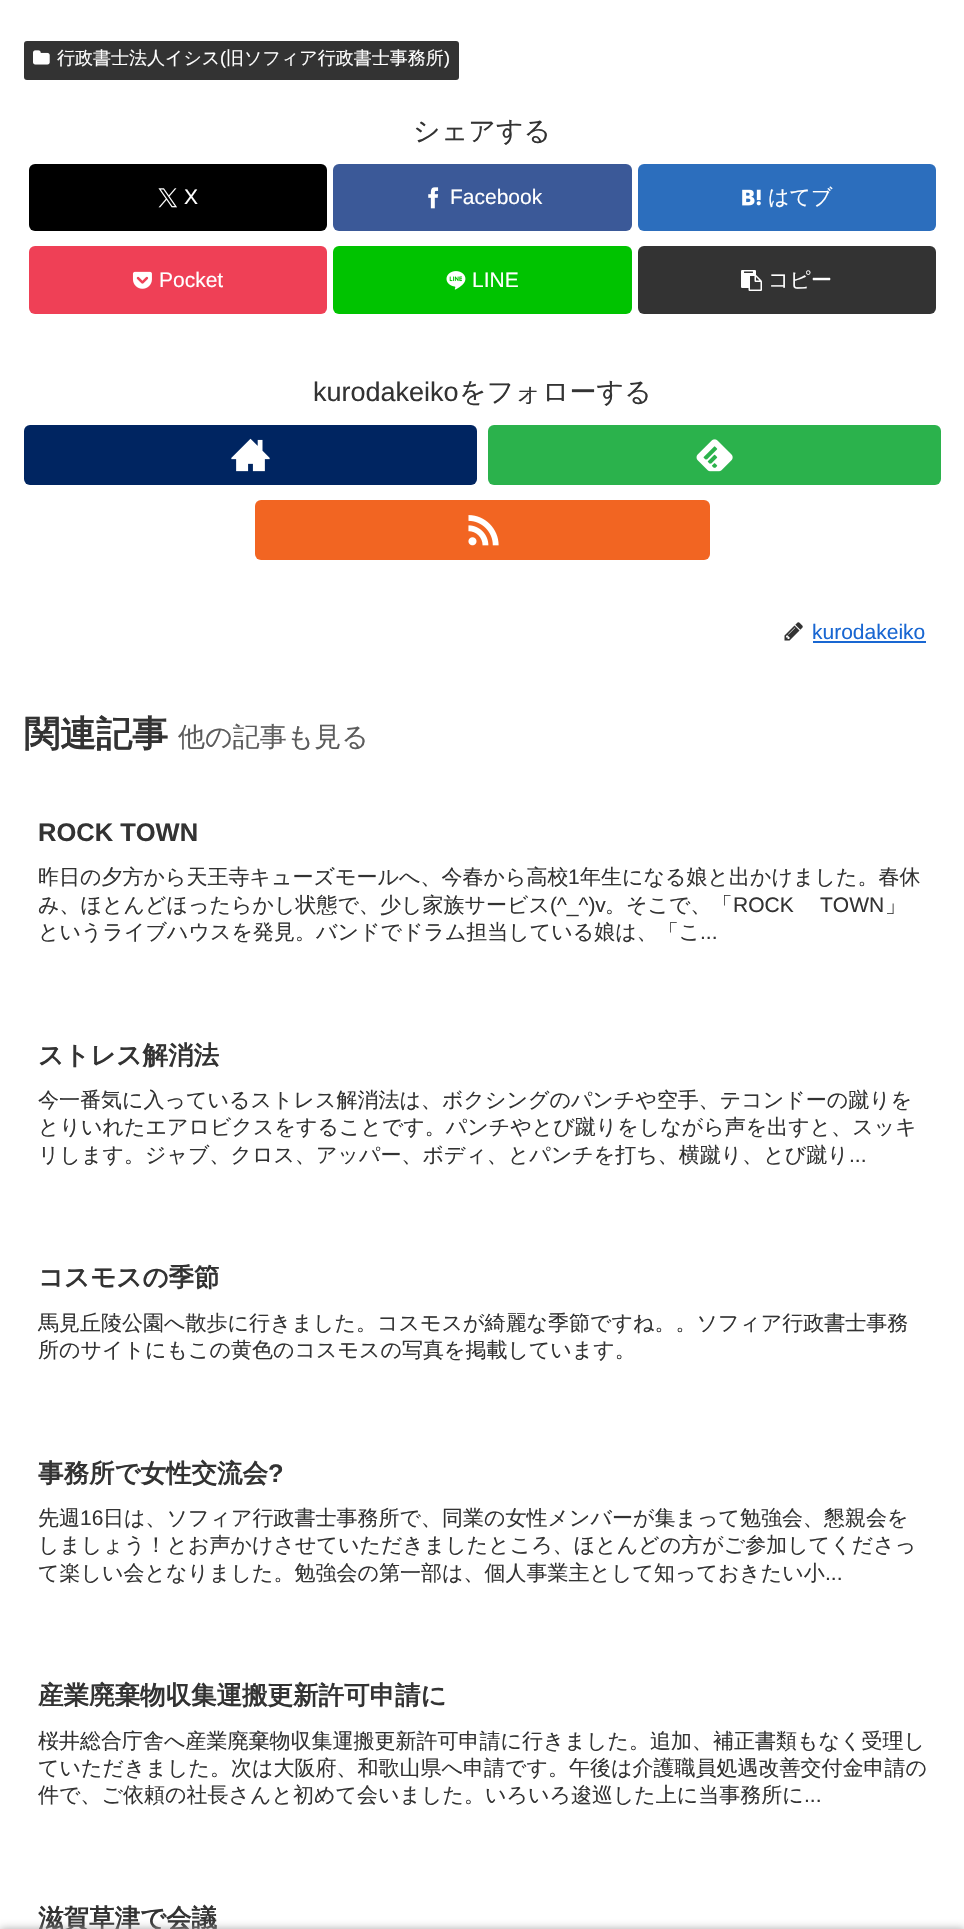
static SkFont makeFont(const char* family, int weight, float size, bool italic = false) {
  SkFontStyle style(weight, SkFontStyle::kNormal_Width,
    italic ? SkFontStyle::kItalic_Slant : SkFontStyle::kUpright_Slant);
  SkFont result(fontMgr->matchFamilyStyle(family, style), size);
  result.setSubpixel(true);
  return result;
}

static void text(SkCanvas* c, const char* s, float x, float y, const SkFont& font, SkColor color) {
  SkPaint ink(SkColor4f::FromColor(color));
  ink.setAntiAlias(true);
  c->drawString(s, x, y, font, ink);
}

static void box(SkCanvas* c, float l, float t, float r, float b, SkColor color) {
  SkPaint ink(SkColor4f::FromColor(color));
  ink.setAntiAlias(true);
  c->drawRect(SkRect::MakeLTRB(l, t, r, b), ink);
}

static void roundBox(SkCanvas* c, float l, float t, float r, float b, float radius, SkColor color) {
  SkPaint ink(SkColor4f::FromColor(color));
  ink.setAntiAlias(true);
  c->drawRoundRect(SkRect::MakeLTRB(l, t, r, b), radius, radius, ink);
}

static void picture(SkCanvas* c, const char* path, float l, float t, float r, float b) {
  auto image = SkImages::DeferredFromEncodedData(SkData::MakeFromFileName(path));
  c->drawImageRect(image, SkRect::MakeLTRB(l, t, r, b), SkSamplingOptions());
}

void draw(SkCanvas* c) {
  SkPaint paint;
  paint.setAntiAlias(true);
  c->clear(0xffffffff);
  roundBox(c, 24, 41, 459, 80, 3, 0xff333333);
  picture(c, "img_01.png", 33, 50, 50, 65);
  SkFont face1 = makeFont("WenQuanYi Zen Hei", 500, 18);
  text(c, "行政書士法人イシス", 57, 64, face1, 0xffffffff);
  SkFont face2 = makeFont("Liberation Sans", 400, 18);
  text(c, "(", 220, 64, face2, 0xffffffff);
  text(c, "旧ソフィア行政書士事務所", 226, 64, face1, 0xffffffff);
  text(c, ")", 444, 64, face2, 0xffffffff);
  SkFont face3 = makeFont("WenQuanYi Zen Hei", 500, 27);
  text(c, "シェアする", 413, 140, face3, 0xff333333);
  roundBox(c, 29, 164, 327, 231, 6, 0xff000000);
  picture(c, "img_02.png", 158, 188, 177, 208);
  SkFont face4 = makeFont("Liberation Sans", 400, 21);
  text(c, "X", 184, 204, face4, 0xffffffff);
  roundBox(c, 333, 164, 632, 231, 6, 0xff3b5998);
  picture(c, "img_03.png", 428, 187, 439, 209);
  text(c, "Facebook", 450, 204, face4, 0xffffffff);
  roundBox(c, 638, 164, 936, 231, 6, 0xff2c6ebd);
  picture(c, "img_04.png", 742, 189, 761, 206);
  SkFont face5 = makeFont("WenQuanYi Zen Hei", 500, 21);
  text(c, "はてブ", 768, 204, face5, 0xffffffff);
  roundBox(c, 29, 246, 327, 314, 6, 0xffef4056);
  picture(c, "img_05.png", 132, 271, 152, 289);
  text(c, "Pocket", 159, 287, face4, 0xffffffff);
  roundBox(c, 333, 246, 632, 314, 6, 0xff00c300);
  picture(c, "img_06.png", 446, 271, 466, 290);
  text(c, "LINE", 472, 287, face4, 0xffffffff);
  roundBox(c, 638, 246, 936, 314, 6, 0xff333333);
  picture(c, "img_07.png", 741, 270, 762, 291);
  text(c, "コピー", 768, 287, face5, 0xffffffff);
  SkFont face6 = makeFont("Liberation Sans", 400, 27);
  text(c, "kurodakeiko", 313, 401, face6, 0xff333333);
  text(c, "をフォローする", 459, 401, face3, 0xff333333);
  roundBox(c, 24, 425, 477, 485, 6, 0xff002561);
  picture(c, "img_08.png", 231, 438, 270, 472);
  roundBox(c, 488, 425, 941, 485, 6, 0xff2bb24c);
  picture(c, "img_09.png", 696, 439, 733, 472);
  roundBox(c, 255, 500, 710, 560, 6, 0xfff26522);
  picture(c, "img_10.png", 468, 515, 499, 546);
  picture(c, "img_11.png", 784, 622, 803, 641);
  text(c, "kurodakeiko", 812, 639, face4, 0xff1967d2);
  box(c, 813, 641, 926, 643, 0xff1967d2);
  SkFont face7 = makeFont("WenQuanYi Zen Hei", 700, 36);
  text(c, "関連記事", 24, 746, face7, 0xff333333);
  text(c, "他の記事も見る", 178, 746, face3, 0xff5c5c5c);
  SkFont face8 = makeFont("Liberation Sans", 700, 25.5f);
  text(c, "ROCK TOWN", 38, 841, face8, 0xff333333);
  text(c, "昨日の夕方から天王寺キューズモールへ、今春から高校", 38, 884, face5, 0xff333333);
  text(c, "1", 568, 884, face4, 0xff333333);
  text(c, "年生になる娘と出かけました。春休", 580, 884, face5, 0xff333333);
  text(c, "み、ほとんどほったらかし状態で、少し家族サービス", 38, 912, face5, 0xff333333);
  text(c, "(^_^)v", 550, 912, face4, 0xff333333);
  text(c, "。そこで、「", 605, 912, face5, 0xff333333);
  text(c, "ROCK", 733, 912, face4, 0xff333333);
  text(c, "TOWN", 820, 912, face4, 0xff333333);
  text(c, "」", 885, 912, face5, 0xff333333);
  text(c, "というライブハウスを発見。バンドでドラム担当している娘は、「こ", 38, 939, face5, 0xff333333);
  text(c, "...", 700, 939, face4, 0xff333333);
  SkFont face9 = makeFont("WenQuanYi Zen Hei", 700, 25.5f);
  text(c, "ストレス解消法", 38, 1064, face9, 0xff333333);
  text(c, "今一番気に入っているストレス解消法は、ボクシングのパンチや空手、テコンドーの蹴りを", 38, 1107, face5, 0xff333333);
  text(c, "とりいれたエアロビクスをすることです。パンチやとび蹴りをしながら声を出すと、スッキ", 38, 1134, face5, 0xff333333);
  text(c, "リします。ジャブ、クロス、アッパー、ボディ、とパンチを打ち、横蹴り、とび蹴り", 38, 1162, face5, 0xff333333);
  text(c, "...", 849, 1162, face4, 0xff333333);
  text(c, "コスモスの季節", 38, 1286, face9, 0xff333333);
  text(c, "馬見丘陵公園へ散歩に行きました。コスモスが綺麗な季節ですね。。ソフィア行政書士事務", 38, 1330, face5, 0xff333333);
  text(c, "所のサイトにもこの黄色のコスモスの写真を掲載しています。", 38, 1357, face5, 0xff333333);
  text(c, "事務所で女性交流会", 38, 1482, face9, 0xff333333);
  text(c, "?", 268, 1482, face8, 0xff333333);
  text(c, "先週", 38, 1525, face5, 0xff333333);
  text(c, "16", 80, 1525, face4, 0xff333333);
  text(c, "日は、ソフィア行政書士事務所で、同業の女性メンバーが集まって勉強会、懇親会を", 103, 1525, face5, 0xff333333);
  text(c, "しましょう！とお声かけさせていただきましたところ、ほとんどの方がご参加してくださっ", 38, 1552, face5, 0xff333333);
  text(c, "て楽しい会となりました。勉強会の第一部は、個人事業主として知っておきたい小", 38, 1580, face5, 0xff333333);
  text(c, "...", 825, 1580, face4, 0xff333333);
  text(c, "産業廃棄物収集運搬更新許可申請に", 38, 1704, face9, 0xff333333);
  text(c, "桜井総合庁舎へ産業廃棄物収集運搬更新許可申請に行きました。追加、補正書類もなく受理し", 38, 1748, face5, 0xff333333);
  text(c, "ていただきました。次は大阪府、和歌山県へ申請です。午後は介護職員処遇改善交付金申請の", 38, 1775, face5, 0xff333333);
  text(c, "件で、ご依頼の社長さんと初めて会いました。いろいろ逡巡した上に当事務所に", 38, 1802, face5, 0xff333333);
  text(c, "...", 804, 1802, face4, 0xff333333);
  text(c, "滋賀草津で会議", 38, 1927, face9, 0xff333333);
  paint.setColor(0xffa9a9a9);
  paint.setMaskFilter(SkMaskFilter::MakeBlur(kNormal_SkBlurStyle, 4));
  c->drawRect(SkRect::MakeLTRB(0, 1929, 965, 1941), paint);
  paint.setMaskFilter(nullptr);
}
